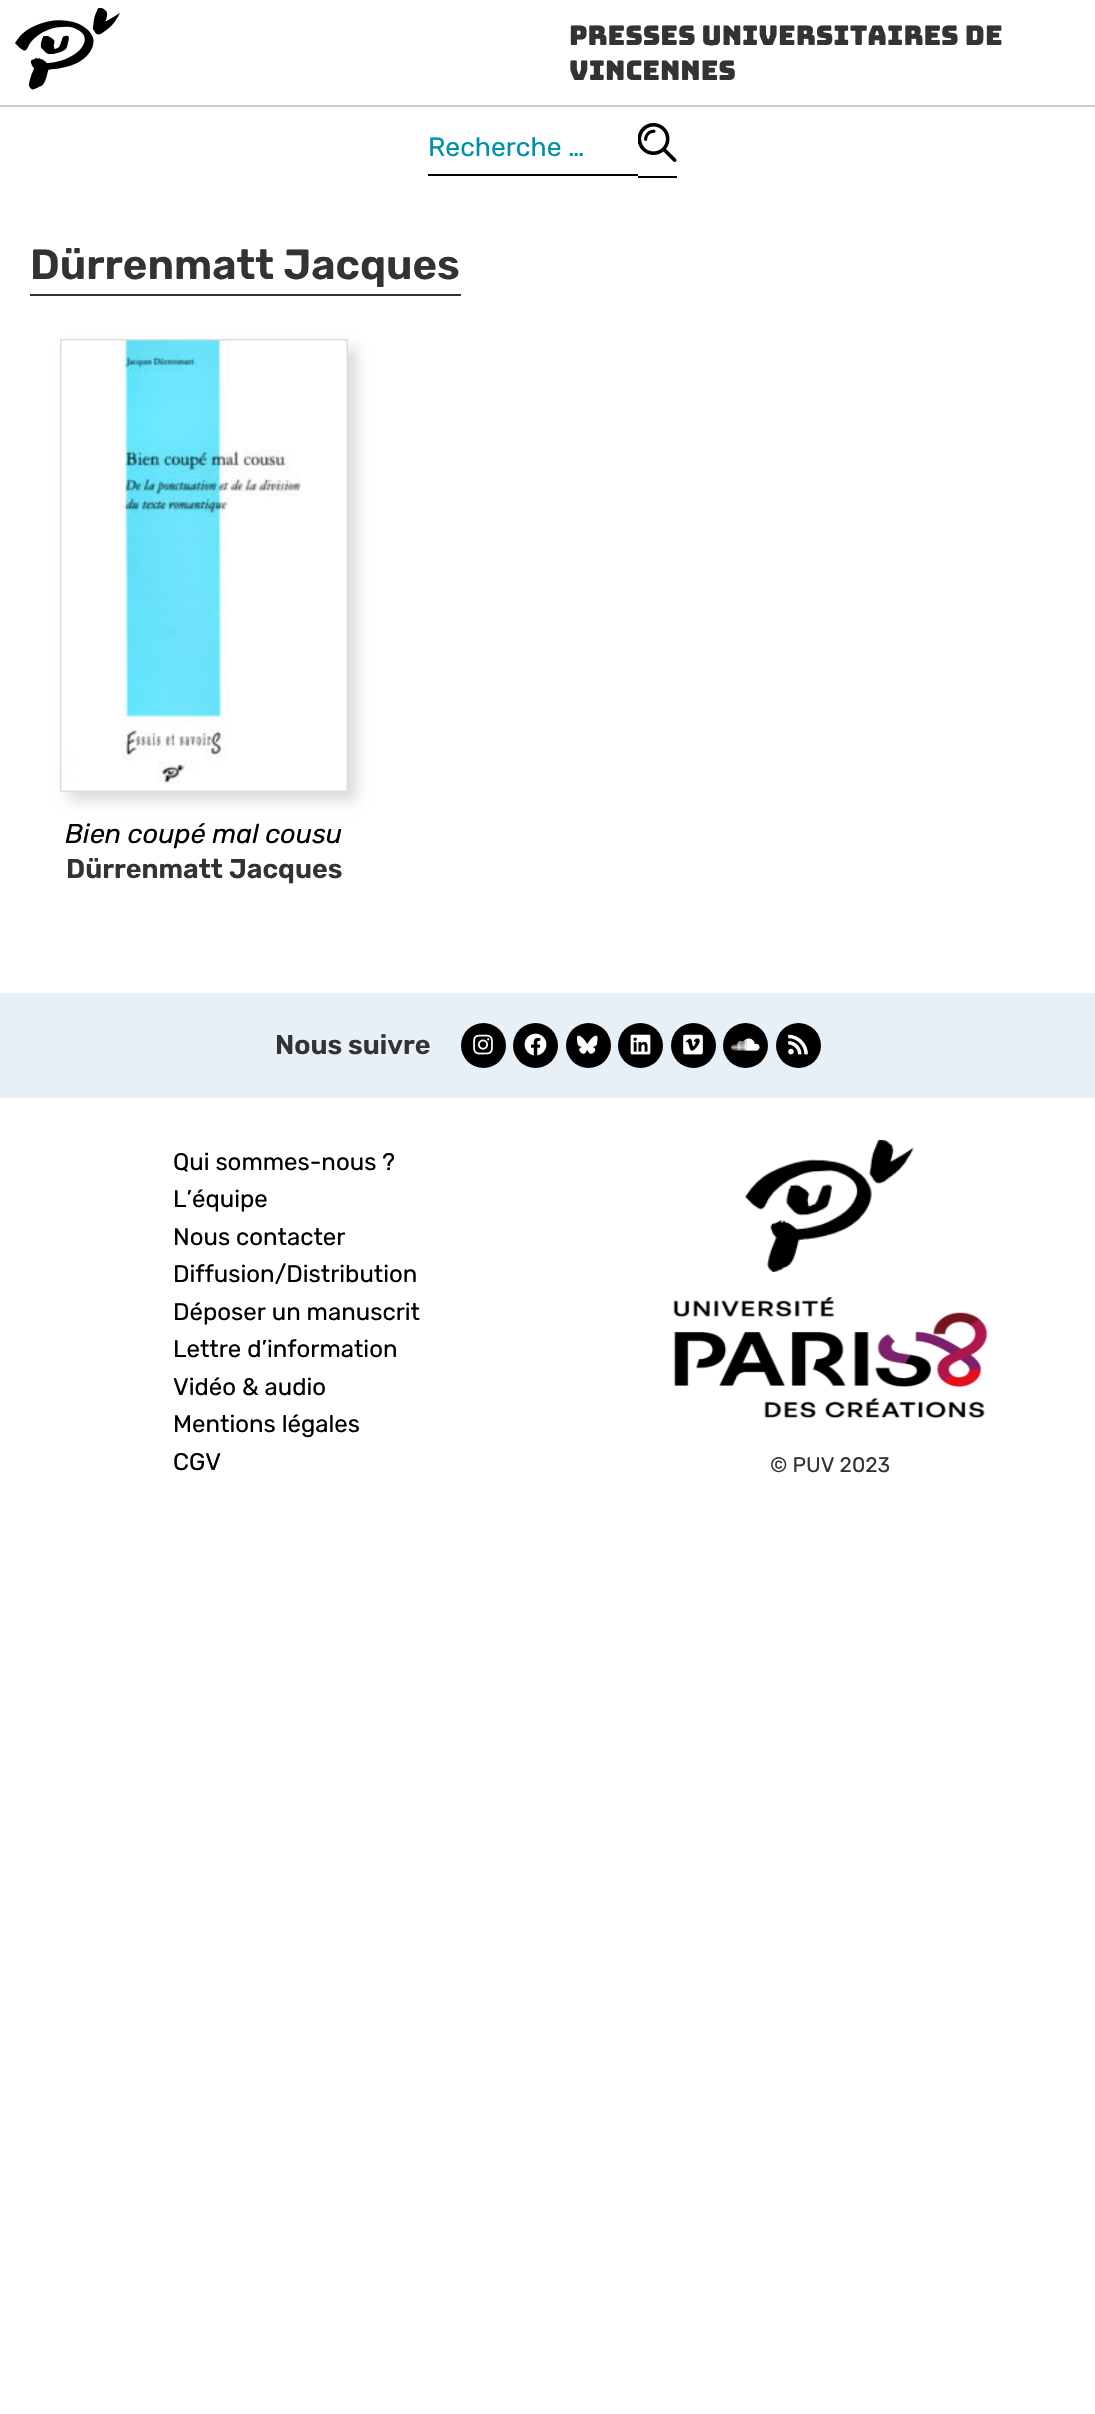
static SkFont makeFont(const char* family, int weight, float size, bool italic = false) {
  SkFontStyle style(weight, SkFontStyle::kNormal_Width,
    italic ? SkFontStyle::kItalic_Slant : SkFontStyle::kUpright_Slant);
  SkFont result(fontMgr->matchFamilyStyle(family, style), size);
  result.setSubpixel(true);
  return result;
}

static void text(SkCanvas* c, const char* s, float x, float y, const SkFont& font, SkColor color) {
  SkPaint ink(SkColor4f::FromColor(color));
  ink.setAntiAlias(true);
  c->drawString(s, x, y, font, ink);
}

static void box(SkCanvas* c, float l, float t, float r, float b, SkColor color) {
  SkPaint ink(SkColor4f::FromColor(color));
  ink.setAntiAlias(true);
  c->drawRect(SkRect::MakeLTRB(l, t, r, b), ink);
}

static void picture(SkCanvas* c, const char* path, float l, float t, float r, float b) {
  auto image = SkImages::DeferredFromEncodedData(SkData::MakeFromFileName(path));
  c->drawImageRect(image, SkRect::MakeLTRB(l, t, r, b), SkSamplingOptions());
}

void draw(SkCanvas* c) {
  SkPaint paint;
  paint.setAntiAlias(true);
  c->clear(0xffffffff);
  picture(c, "img_01.png", 15, 8, 120, 90);
  SkFont face1 = makeFont("Bungee", 400, 27);
  text(c, "Presses Universitaires de", 569, 45, face1, 0xff333333);
  text(c, "Vincennes", 569, 80, face1, 0xff333333);
  box(c, 0, 105, 1095, 107, 0xffc1d2d6);
  box(c, 428, 174, 638, 176, 0xff000000);
  SkFont face2 = makeFont("Rubik", 400, 26.5f);
  text(c, "Recherche …", 428, 156, face2, 0xff0090ab);
  picture(c, "img_02.png", 638, 123, 677, 162);
  box(c, 638, 176, 677, 178, 0xff000000);
  SkFont face3 = makeFont("Rubik", 600, 42);
  text(c, "Dürrenmatt Jacques", 30, 279, face3, 0xff333333);
  box(c, 30, 294, 461, 296, 0xff333333);
  paint.setColor(0xffdddddd);
  paint.setMaskFilter(SkMaskFilter::MakeBlur(kNormal_SkBlurStyle, 6));
  c->drawRect(SkRect::MakeLTRB(69, 348, 357, 801), paint);
  paint.setMaskFilter(nullptr);
  paint.setStyle(SkPaint::kStroke_Style);
  paint.setStrokeWidth(2);
  c->drawRect(SkRect::MakeLTRB(61, 340, 347, 791), paint);
  picture(c, "img_03.png", 61, 340, 347, 791);
  SkFont face4 = makeFont("Rubik", 400, 27, true);
  text(c, "Bien coupé mal cousu", 65, 843, face4, 0xff000000);
  SkFont face5 = makeFont("Rubik", 600, 27);
  text(c, "Dürrenmatt Jacques", 66, 878, face5, 0xff333333);
  box(c, 0, 993, 1095, 1098, 0xffe7f0f6);
  text(c, "Nous suivre", 275, 1054, face5, 0xff333333);
  paint.setStyle(SkPaint::kFill_Style);
  paint.setColor(0xff000000);
  c->drawCircle(483.5f, 1045.5f, 22.5f, paint);
  picture(c, "img_04.png", 473, 1034, 493, 1055);
  c->drawCircle(535.5f, 1045.5f, 22.5f, paint);
  picture(c, "img_05.png", 524, 1033, 547, 1056);
  c->drawCircle(588.5f, 1045.5f, 22.5f, paint);
  picture(c, "img_06.png", 576, 1035, 598, 1054);
  c->drawCircle(640.5f, 1045.5f, 22.5f, paint);
  picture(c, "img_07.png", 630, 1034, 651, 1055);
  c->drawCircle(693.5f, 1045.5f, 22.5f, paint);
  picture(c, "img_08.png", 683, 1034, 703, 1055);
  c->drawCircle(745.5f, 1045.5f, 22.5f, paint);
  picture(c, "img_09.png", 731, 1038, 760, 1051);
  c->drawCircle(798.5f, 1045.5f, 22.5f, paint);
  picture(c, "img_10.png", 788, 1034, 808, 1055);
  SkFont face6 = makeFont("Rubik", 400, 24);
  text(c, "Qui sommes-nous ?", 173, 1170, face6, 0xff000000);
  text(c, "L’équipe", 173, 1207, face6, 0xff000000);
  text(c, "Nous contacter", 173, 1245, face6, 0xff000000);
  text(c, "Diffusion/Distribution", 173, 1282, face6, 0xff000000);
  text(c, "Déposer un manuscrit", 173, 1320, face6, 0xff000000);
  text(c, "Lettre d’information", 173, 1357, face6, 0xff000000);
  text(c, "Vidéo & audio", 173, 1395, face6, 0xff000000);
  text(c, "Mentions légales", 173, 1432, face6, 0xff000000);
  text(c, "CGV", 173, 1470, face6, 0xff000000);
  picture(c, "img_11.png", 745, 1140, 914, 1272);
  picture(c, "img_12.png", 673, 1296, 988, 1418);
  SkFont face7 = makeFont("Rubik", 400, 21);
  text(c, "© PUV 2023", 770, 1472, face7, 0xff333333);
}
